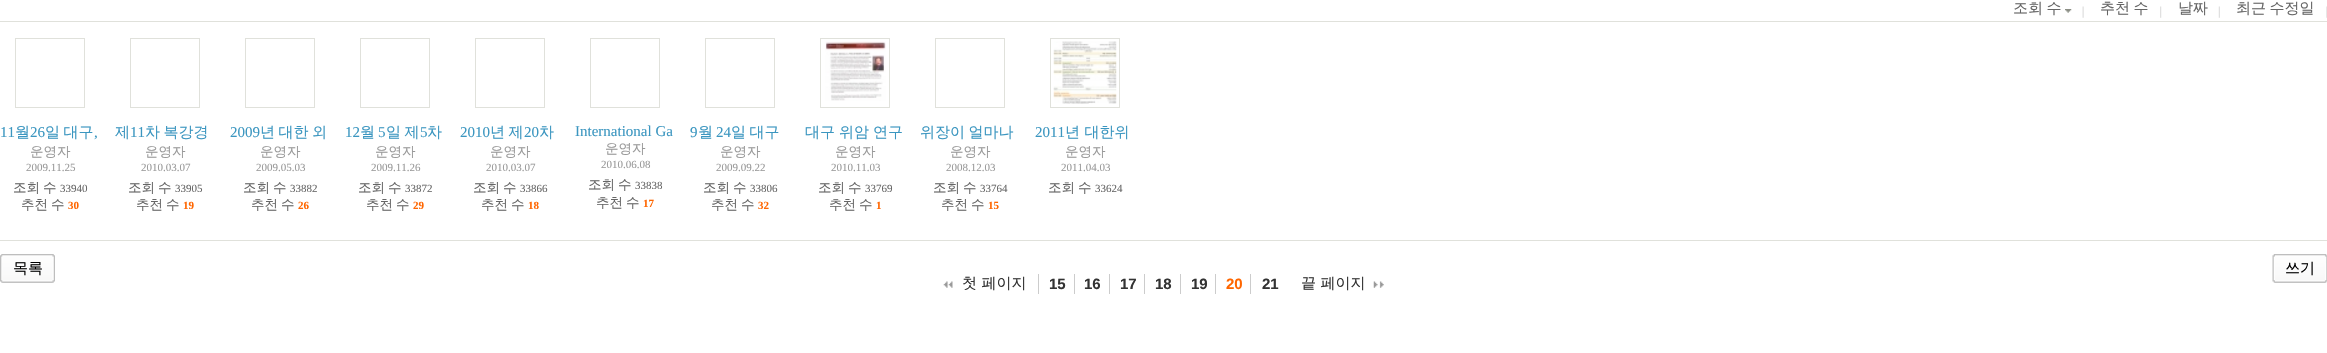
static SkFont makeFont(const char* family, int weight, float size, bool italic = false) {
  SkFontStyle style(weight, SkFontStyle::kNormal_Width,
    italic ? SkFontStyle::kItalic_Slant : SkFontStyle::kUpright_Slant);
  SkFont result(fontMgr->matchFamilyStyle(family, style), size);
  result.setSubpixel(true);
  return result;
}

static void text(SkCanvas* c, const char* s, float x, float y, const SkFont& font, SkColor color) {
  SkPaint ink(SkColor4f::FromColor(color));
  ink.setAntiAlias(true);
  c->drawString(s, x, y, font, ink);
}

static void spacedText(SkCanvas* c, const char* s, float x, float y, const SkFont& font, const SkPaint& ink, float letter, float word) {
  std::vector<SkGlyphID> glyphs(font.countText(s, strlen(s), SkTextEncoding::kUTF8));
  std::vector<float> xs(glyphs.size());
  font.textToGlyphs(s, strlen(s), SkTextEncoding::kUTF8, glyphs);
  font.getXPos(glyphs, xs, x);
  float extra = 0;
  for (size_t i = 0; i < glyphs.size(); i++) {
    xs[i] += extra;
    extra += letter + word * (glyphs[i] == font.unicharToGlyph(' '));
  }
  c->drawTextBlob(SkTextBlob::MakeFromPosHGlyphs(glyphs, xs, y, font), 0, 0, ink);
}

static void box(SkCanvas* c, float l, float t, float r, float b, SkColor color) {
  SkPaint ink(SkColor4f::FromColor(color));
  ink.setAntiAlias(true);
  c->drawRect(SkRect::MakeLTRB(l, t, r, b), ink);
}

static void picture(SkCanvas* c, const char* path, float l, float t, float r, float b) {
  auto image = SkImages::DeferredFromEncodedData(SkData::MakeFromFileName(path));
  c->drawImageRect(image, SkRect::MakeLTRB(l, t, r, b), SkSamplingOptions());
}

void draw(SkCanvas* c) {
  SkPaint paint;
  paint.setAntiAlias(true);
  c->clear(0xffffffff);
  box(c, 0, 21, 2327, 22, 0xffe0e1db);
  SkFont face1 = makeFont("WenQuanYi Zen Hei", 500, 15);
  paint.setColor(0xff666666);
  spacedText(c, "조회 수", 2013, 13, face1, paint, 0, -1);
  picture(c, "img_01.png", 2065, 9, 2072, 13);
  picture(c, "img_02.png", 2082, 6, 2084, 18);
  spacedText(c, "추천 수", 2100, 13, face1, paint, 0, -1);
  picture(c, "img_03.png", 2160, 6, 2162, 18);
  text(c, "날짜", 2178, 13, face1, 0xff666666);
  picture(c, "img_04.png", 2218, 6, 2220, 18);
  spacedText(c, "최근 수정일", 2236, 13, face1, paint, 0, -1);
  picture(c, "img_05.png", 2326, 6, 2327, 18);
  box(c, 0, 240, 2327, 241, 0xffe0e1db);
  paint.setStyle(SkPaint::kStroke_Style);
  paint.setStrokeWidth(1);
  paint.setColor(0xffe0e1db);
  c->drawRect(SkRect::MakeLTRB(15.5f, 38.5f, 84.5f, 107.5f), paint);
  SkFont face2 = makeFont("Liberation Serif", 400, 15);
  text(c, "11", 0, 137, face2, 0xff3b96c0);
  text(c, "월", 15, 137, face1, 0xff3b96c0);
  text(c, "26", 30, 137, face2, 0xff3b96c0);
  paint.setStyle(SkPaint::kFill_Style);
  paint.setColor(0xff3b96c0);
  spacedText(c, "일 대구", 45, 137, face1, paint, 0, -1);
  text(c, ",", 94, 137, face2, 0xff3b96c0);
  SkFont face3 = makeFont("WenQuanYi Zen Hei", 500, 13.5f);
  text(c, "운영자", 30, 156, face3, 0xff999999);
  SkFont face4 = makeFont("Liberation Serif", 400, 11);
  text(c, "2009.11.25", 26, 171, face4, 0xff999999);
  paint.setColor(0xff666666);
  spacedText(c, "조회 수", 13, 192, face3, paint, 0, -1);
  text(c, "33940", 60, 192, face4, 0xff666666);
  spacedText(c, "추천 수", 21, 209, face3, paint, 0, -1);
  SkFont face5 = makeFont("Liberation Serif", 700, 11);
  text(c, "30", 68, 209, face5, 0xffff6600);
  paint.setStyle(SkPaint::kStroke_Style);
  paint.setColor(0xffe0e1db);
  c->drawRect(SkRect::MakeLTRB(130.5f, 38.5f, 199.5f, 107.5f), paint);
  text(c, "제", 115, 137, face1, 0xff3b96c0);
  text(c, "11", 130, 137, face2, 0xff3b96c0);
  paint.setStyle(SkPaint::kFill_Style);
  paint.setColor(0xff3b96c0);
  spacedText(c, "차 복강경", 145, 137, face1, paint, 0, -1);
  text(c, "운영자", 145, 156, face3, 0xff999999);
  text(c, "2010.03.07", 141, 171, face4, 0xff999999);
  paint.setColor(0xff666666);
  spacedText(c, "조회 수", 128, 192, face3, paint, 0, -1);
  text(c, "33905", 175, 192, face4, 0xff666666);
  spacedText(c, "추천 수", 136, 209, face3, paint, 0, -1);
  text(c, "19", 183, 209, face5, 0xffff6600);
  paint.setStyle(SkPaint::kStroke_Style);
  paint.setColor(0xffe0e1db);
  c->drawRect(SkRect::MakeLTRB(245.5f, 38.5f, 314.5f, 107.5f), paint);
  text(c, "2009", 230, 137, face2, 0xff3b96c0);
  paint.setStyle(SkPaint::kFill_Style);
  paint.setColor(0xff3b96c0);
  spacedText(c, "년 대한 외", 260, 137, face1, paint, 0, -1);
  text(c, "운영자", 260, 156, face3, 0xff999999);
  text(c, "2009.05.03", 256, 171, face4, 0xff999999);
  paint.setColor(0xff666666);
  spacedText(c, "조회 수", 243, 192, face3, paint, 0, -1);
  text(c, "33882", 290, 192, face4, 0xff666666);
  spacedText(c, "추천 수", 251, 209, face3, paint, 0, -1);
  text(c, "26", 298, 209, face5, 0xffff6600);
  paint.setStyle(SkPaint::kStroke_Style);
  paint.setColor(0xffe0e1db);
  c->drawRect(SkRect::MakeLTRB(360.5f, 38.5f, 429.5f, 107.5f), paint);
  text(c, "12", 345, 137, face2, 0xff3b96c0);
  text(c, "월", 360, 137, face1, 0xff3b96c0);
  text(c, "5", 378, 137, face2, 0xff3b96c0);
  paint.setStyle(SkPaint::kFill_Style);
  paint.setColor(0xff3b96c0);
  spacedText(c, "일 제", 386, 137, face1, paint, 0, -1);
  text(c, "5", 420, 137, face2, 0xff3b96c0);
  spacedText(c, "차", 427, 137, face1, paint, 0, -1);
  text(c, "운영자", 375, 156, face3, 0xff999999);
  text(c, "2009.11.26", 371, 171, face4, 0xff999999);
  paint.setColor(0xff666666);
  spacedText(c, "조회 수", 358, 192, face3, paint, 0, -1);
  text(c, "33872", 405, 192, face4, 0xff666666);
  spacedText(c, "추천 수", 366, 209, face3, paint, 0, -1);
  text(c, "29", 413, 209, face5, 0xffff6600);
  paint.setStyle(SkPaint::kStroke_Style);
  paint.setColor(0xffe0e1db);
  c->drawRect(SkRect::MakeLTRB(475.5f, 38.5f, 544.5f, 107.5f), paint);
  text(c, "2010", 460, 137, face2, 0xff3b96c0);
  paint.setStyle(SkPaint::kFill_Style);
  paint.setColor(0xff3b96c0);
  spacedText(c, "년 제", 490, 137, face1, paint, 0, -1);
  text(c, "20", 524, 137, face2, 0xff3b96c0);
  spacedText(c, "차", 539, 137, face1, paint, 0, -1);
  text(c, "운영자", 490, 156, face3, 0xff999999);
  text(c, "2010.03.07", 486, 171, face4, 0xff999999);
  paint.setColor(0xff666666);
  spacedText(c, "조회 수", 473, 192, face3, paint, 0, -1);
  text(c, "33866", 520, 192, face4, 0xff666666);
  spacedText(c, "추천 수", 481, 209, face3, paint, 0, -1);
  text(c, "18", 528, 209, face5, 0xffff6600);
  paint.setStyle(SkPaint::kStroke_Style);
  paint.setColor(0xffe0e1db);
  c->drawRect(SkRect::MakeLTRB(590.5f, 38.5f, 659.5f, 107.5f), paint);
  text(c, "International Ga", 575, 136, face2, 0xff3b96c0);
  text(c, "운영자", 605, 153, face3, 0xff999999);
  text(c, "2010.06.08", 601, 168, face4, 0xff999999);
  paint.setStyle(SkPaint::kFill_Style);
  paint.setColor(0xff666666);
  spacedText(c, "조회 수", 588, 189, face3, paint, 0, -1);
  text(c, "33838", 635, 189, face4, 0xff666666);
  spacedText(c, "추천 수", 596, 207, face3, paint, 0, -1);
  text(c, "17", 643, 207, face5, 0xffff6600);
  paint.setStyle(SkPaint::kStroke_Style);
  paint.setColor(0xffe0e1db);
  c->drawRect(SkRect::MakeLTRB(705.5f, 38.5f, 774.5f, 107.5f), paint);
  text(c, "9", 690, 137, face2, 0xff3b96c0);
  text(c, "월", 698, 137, face1, 0xff3b96c0);
  text(c, "24", 716, 137, face2, 0xff3b96c0);
  paint.setStyle(SkPaint::kFill_Style);
  paint.setColor(0xff3b96c0);
  spacedText(c, "일 대구", 731, 137, face1, paint, 0, -1);
  text(c, "운영자", 720, 156, face3, 0xff999999);
  text(c, "2009.09.22", 716, 171, face4, 0xff999999);
  paint.setColor(0xff666666);
  spacedText(c, "조회 수", 703, 192, face3, paint, 0, -1);
  text(c, "33806", 750, 192, face4, 0xff666666);
  spacedText(c, "추천 수", 711, 209, face3, paint, 0, -1);
  text(c, "32", 758, 209, face5, 0xffff6600);
  paint.setStyle(SkPaint::kStroke_Style);
  paint.setColor(0xffe0e1db);
  c->drawRect(SkRect::MakeLTRB(820.5f, 38.5f, 889.5f, 107.5f), paint);
  picture(c, "img_06.png", 825, 41, 886, 101);
  text(c, "대구", 805, 137, face1, 0xff3b96c0);
  text(c, "위암", 839, 137, face1, 0xff3b96c0);
  text(c, "연구", 873, 137, face1, 0xff3b96c0);
  text(c, "운영자", 835, 156, face3, 0xff999999);
  text(c, "2010.11.03", 831, 171, face4, 0xff999999);
  paint.setStyle(SkPaint::kFill_Style);
  paint.setColor(0xff666666);
  spacedText(c, "조회 수", 818, 192, face3, paint, 0, -1);
  text(c, "33769", 865, 192, face4, 0xff666666);
  spacedText(c, "추천 수", 829, 209, face3, paint, 0, -1);
  text(c, "1", 876, 209, face5, 0xffff6600);
  paint.setStyle(SkPaint::kStroke_Style);
  paint.setColor(0xffe0e1db);
  c->drawRect(SkRect::MakeLTRB(935.5f, 38.5f, 1004.5f, 107.5f), paint);
  paint.setStyle(SkPaint::kFill_Style);
  paint.setColor(0xff3b96c0);
  spacedText(c, "위장이 얼마나", 920, 137, face1, paint, 0, -1);
  text(c, "운영자", 950, 156, face3, 0xff999999);
  text(c, "2008.12.03", 946, 171, face4, 0xff999999);
  paint.setColor(0xff666666);
  spacedText(c, "조회 수", 933, 192, face3, paint, 0, -1);
  text(c, "33764", 980, 192, face4, 0xff666666);
  spacedText(c, "추천 수", 941, 209, face3, paint, 0, -1);
  text(c, "15", 988, 209, face5, 0xffff6600);
  paint.setStyle(SkPaint::kStroke_Style);
  paint.setColor(0xffe0e1db);
  c->drawRect(SkRect::MakeLTRB(1050.5f, 38.5f, 1119.5f, 107.5f), paint);
  picture(c, "img_07.png", 1053, 41, 1117, 104);
  text(c, "2011", 1035, 137, face2, 0xff3b96c0);
  text(c, "년 대한위", 1065, 137, face1, 0xff3b96c0);
  text(c, "운영자", 1065, 156, face3, 0xff999999);
  text(c, "2011.04.03", 1061, 171, face4, 0xff999999);
  paint.setStyle(SkPaint::kFill_Style);
  paint.setColor(0xff666666);
  spacedText(c, "조회 수", 1048, 192, face3, paint, 0, -1);
  text(c, "33624", 1095, 192, face4, 0xff666666);
  picture(c, "img_08.png", 0, 254, 53, 283);
  picture(c, "img_09.png", 2, 254, 55, 283);
  text(c, "목록", 13, 273, face1, 0xff000000);
  picture(c, "img_10.png", 2272, 254, 2325, 283);
  picture(c, "img_11.png", 2275, 254, 2327, 283);
  text(c, "쓰기", 2285, 273, face1, 0xff000000);
  picture(c, "img_12.png", 943, 281, 953, 288);
  text(c, "첫 페이지", 962, 288, face1, 0xff333333);
  box(c, 1038, 274, 1039, 294, 0xffcccccc);
  SkFont face6 = makeFont("Liberation Sans", 700, 15);
  text(c, "15", 1049, 289, face6, 0xff333333);
  box(c, 1074, 274, 1075, 294, 0xffcccccc);
  text(c, "16", 1084, 289, face6, 0xff333333);
  box(c, 1109, 274, 1110, 294, 0xffcccccc);
  text(c, "17", 1120, 289, face6, 0xff333333);
  box(c, 1144, 274, 1145, 294, 0xffcccccc);
  text(c, "18", 1155, 289, face6, 0xff333333);
  box(c, 1180, 274, 1181, 294, 0xffcccccc);
  text(c, "19", 1191, 289, face6, 0xff333333);
  box(c, 1215, 274, 1216, 294, 0xffcccccc);
  text(c, "20", 1226, 289, face6, 0xffff6600);
  box(c, 1250, 274, 1251, 294, 0xffcccccc);
  text(c, "21", 1262, 289, face6, 0xff333333);
  picture(c, "img_13.png", 1373, 281, 1384, 288);
  text(c, "끝 페이지", 1301, 288, face1, 0xff333333);
}
